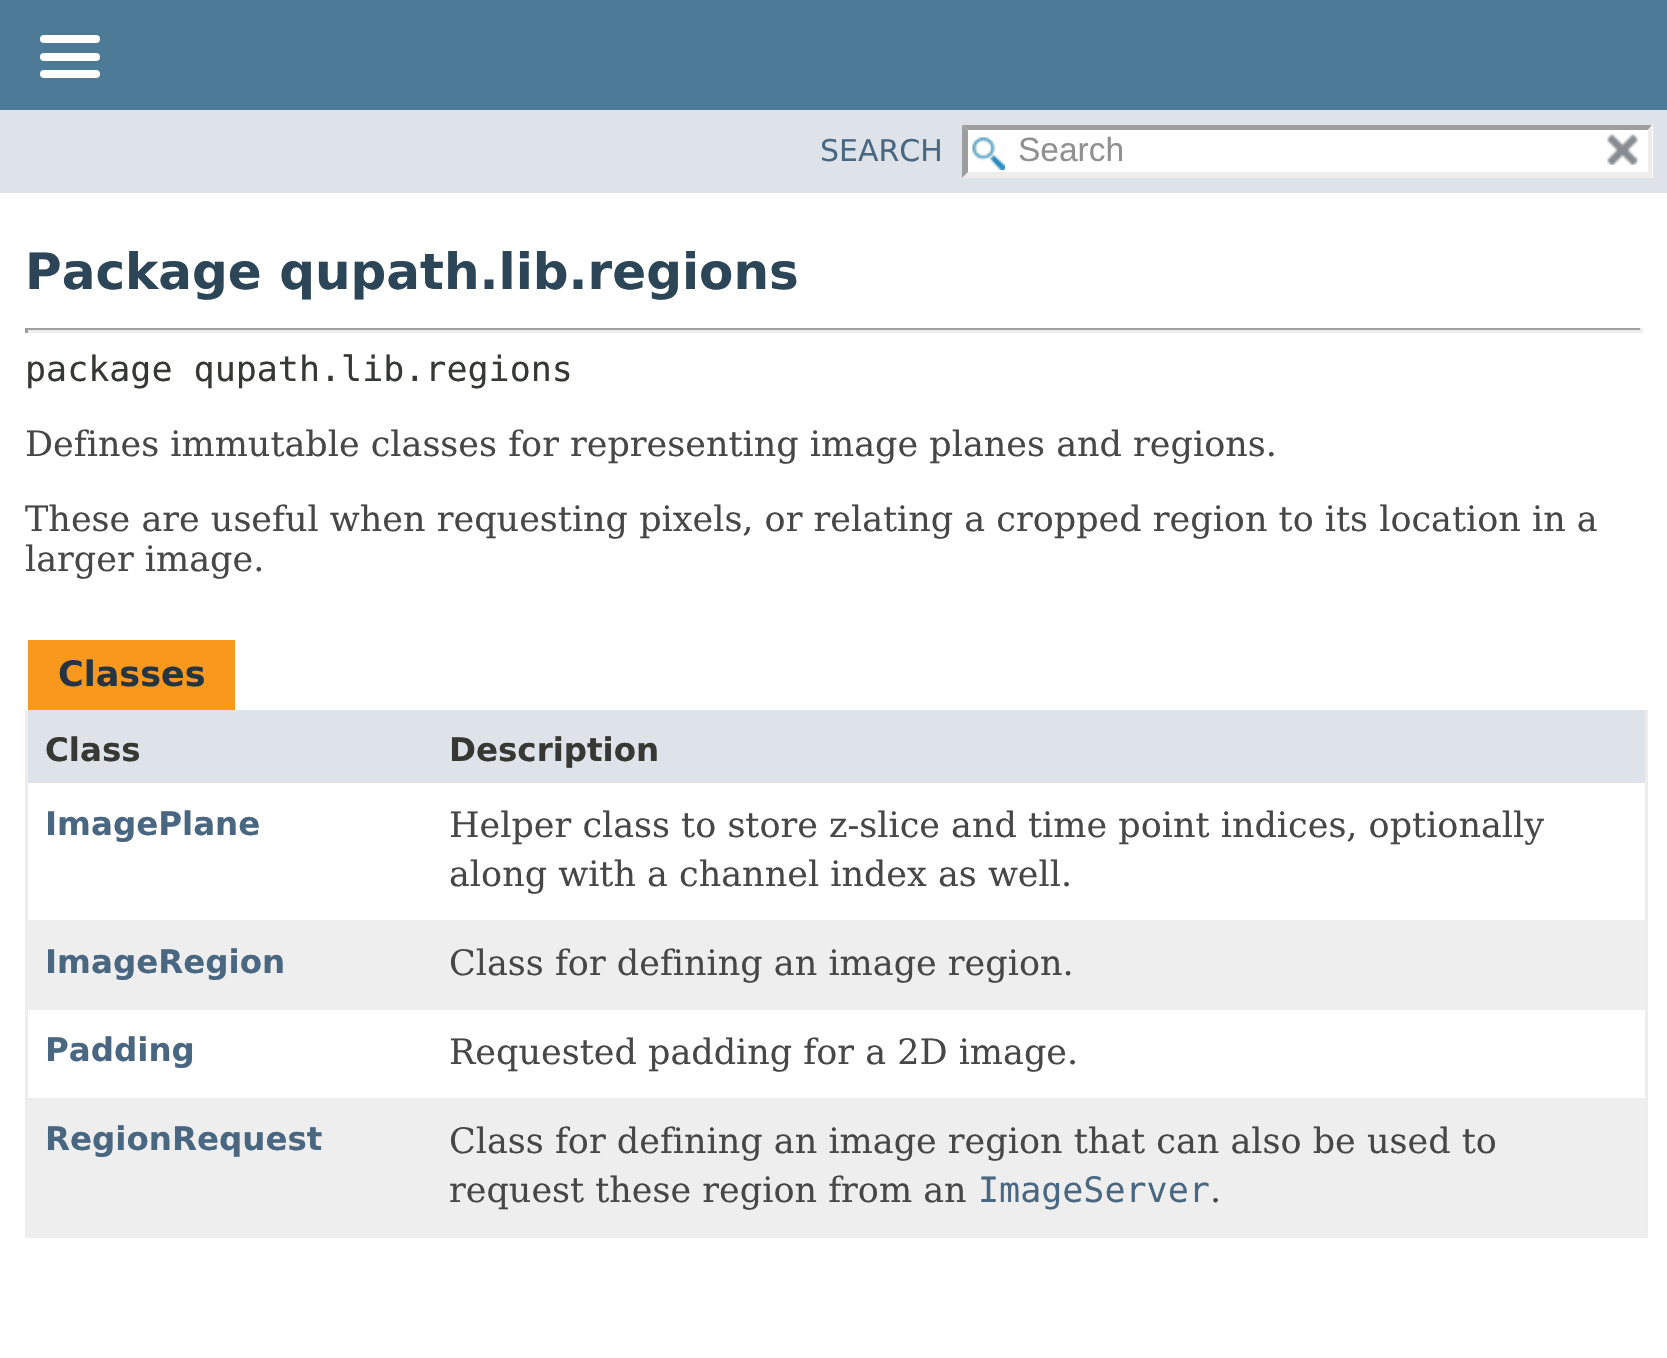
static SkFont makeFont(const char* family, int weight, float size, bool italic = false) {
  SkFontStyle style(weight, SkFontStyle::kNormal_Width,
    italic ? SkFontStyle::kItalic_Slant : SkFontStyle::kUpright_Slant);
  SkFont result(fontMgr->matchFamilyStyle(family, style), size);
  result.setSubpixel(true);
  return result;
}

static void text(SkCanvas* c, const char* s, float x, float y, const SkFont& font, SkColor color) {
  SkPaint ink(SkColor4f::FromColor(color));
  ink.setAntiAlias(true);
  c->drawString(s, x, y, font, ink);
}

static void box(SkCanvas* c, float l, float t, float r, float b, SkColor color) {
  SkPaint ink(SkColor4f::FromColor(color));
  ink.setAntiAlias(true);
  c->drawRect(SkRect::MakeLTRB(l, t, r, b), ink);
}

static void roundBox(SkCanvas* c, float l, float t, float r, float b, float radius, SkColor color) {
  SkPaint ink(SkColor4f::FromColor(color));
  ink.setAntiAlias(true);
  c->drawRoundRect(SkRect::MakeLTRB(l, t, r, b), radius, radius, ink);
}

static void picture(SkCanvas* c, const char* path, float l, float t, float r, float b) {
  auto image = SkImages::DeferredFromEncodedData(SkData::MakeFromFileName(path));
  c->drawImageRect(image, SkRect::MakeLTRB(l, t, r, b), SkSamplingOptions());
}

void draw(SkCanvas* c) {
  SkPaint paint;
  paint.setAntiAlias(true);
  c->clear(0xffffffff);
  box(c, 0, 0, 1667, 110, 0xff4d7a97);
  roundBox(c, 40, 35, 100, 43, 4, 0xffffffff);
  roundBox(c, 40, 53, 100, 61, 4, 0xffffffff);
  roundBox(c, 40, 70, 100, 78, 4, 0xffffffff);
  box(c, 0, 110, 1667, 193, 0xffdee3e9);
  SkFont face1 = makeFont("DejaVu Sans", 400, 30);
  text(c, "SEARCH", 820, 161, face1, 0xff4a6782);
  box(c, 963, 125, 1653, 178, 0xffffffff);
  picture(c, "img_01.png", 972, 137, 1005, 170);
  paint.setColor(0xff9e9e9e);
  c->drawPath(SkPathBuilder().moveTo(962, 125).lineTo(1652, 125).lineTo(1648, 130).lineTo(968, 130).close().detach(), paint);
  paint.setColor(0xffededed);
  c->drawPath(SkPathBuilder().moveTo(1652, 125).lineTo(1652, 178).lineTo(1648, 172).lineTo(1648, 130).close().detach(), paint);
  c->drawPath(SkPathBuilder().moveTo(1652, 178).lineTo(962, 178).lineTo(968, 172).lineTo(1648, 172).close().detach(), paint);
  paint.setColor(0xff9e9e9e);
  c->drawPath(SkPathBuilder().moveTo(962, 178).lineTo(962, 125).lineTo(968, 130).lineTo(968, 172).close().detach(), paint);
  SkFont face2 = makeFont("Liberation Sans", 400, 33.5f);
  text(c, "Search", 1018, 161, face2, 0xff909090);
  picture(c, "img_02.png", 1607, 134, 1638, 165);
  SkFont face3 = makeFont("DejaVu Sans", 700, 50);
  text(c, "Package qupath.lib.regions", 25, 289, face3, 0xff2c4557);
  box(c, 25, 328, 1643, 330, 0xff9f9f9f);
  box(c, 1640, 328, 1643, 333, 0xffeeeeee);
  box(c, 25, 330, 1643, 333, 0xffeeeeee);
  box(c, 25, 328, 28, 333, 0xff9f9f9f);
  SkFont face4 = makeFont("DejaVu Sans Mono", 400, 35);
  text(c, "package qupath.lib.regions", 25, 381, face4, 0xff353833);
  SkFont face5 = makeFont("DejaVu Serif", 400, 35);
  text(c, "Defines immutable classes for representing image planes and regions.", 25, 456, face5, 0xff474747);
  text(c, "These are useful when requesting pixels, or relating a cropped region to its location in a", 25, 531, face5, 0xff474747);
  text(c, "larger image.", 25, 571, face5, 0xff474747);
  box(c, 28, 640, 235, 710, 0xfff8981d);
  SkFont face6 = makeFont("DejaVu Sans", 700, 35);
  text(c, "Classes", 58, 686, face6, 0xff253441);
  box(c, 1645, 710, 1648, 1238, 0xffededed);
  box(c, 25, 1235, 1648, 1238, 0xffededed);
  box(c, 25, 710, 28, 1238, 0xffededed);
  box(c, 28, 710, 1645, 783, 0xffdee3e9);
  SkFont face7 = makeFont("DejaVu Sans", 700, 32.5f);
  text(c, "Class", 45, 761, face7, 0xff353833);
  text(c, "Description", 449, 761, face7, 0xff353833);
  text(c, "ImagePlane", 45, 835, face7, 0xff4a6782);
  text(c, "Helper class to store z-slice and time point indices, optionally", 449, 837, face5, 0xff474747);
  text(c, "along with a channel index as well.", 449, 886, face5, 0xff474747);
  box(c, 28, 920, 1645, 1010, 0xffeeeeef);
  text(c, "ImageRegion", 45, 973, face7, 0xff4a6782);
  text(c, "Class for defining an image region.", 449, 975, face5, 0xff474747);
  text(c, "Padding", 45, 1061, face7, 0xff4a6782);
  text(c, "Requested padding for a 2D image.", 449, 1064, face5, 0xff474747);
  box(c, 28, 1098, 1645, 1235, 0xffeeeeef);
  text(c, "RegionRequest", 45, 1150, face7, 0xff4a6782);
  text(c, "Class for defining an image region that can also be used to", 449, 1153, face5, 0xff474747);
  text(c, "request these region from an", 449, 1202, face5, 0xff474747);
  text(c, "ImageServer", 978, 1202, face4, 0xff4a6782);
  text(c, ".", 1210, 1202, face5, 0xff474747);
}
